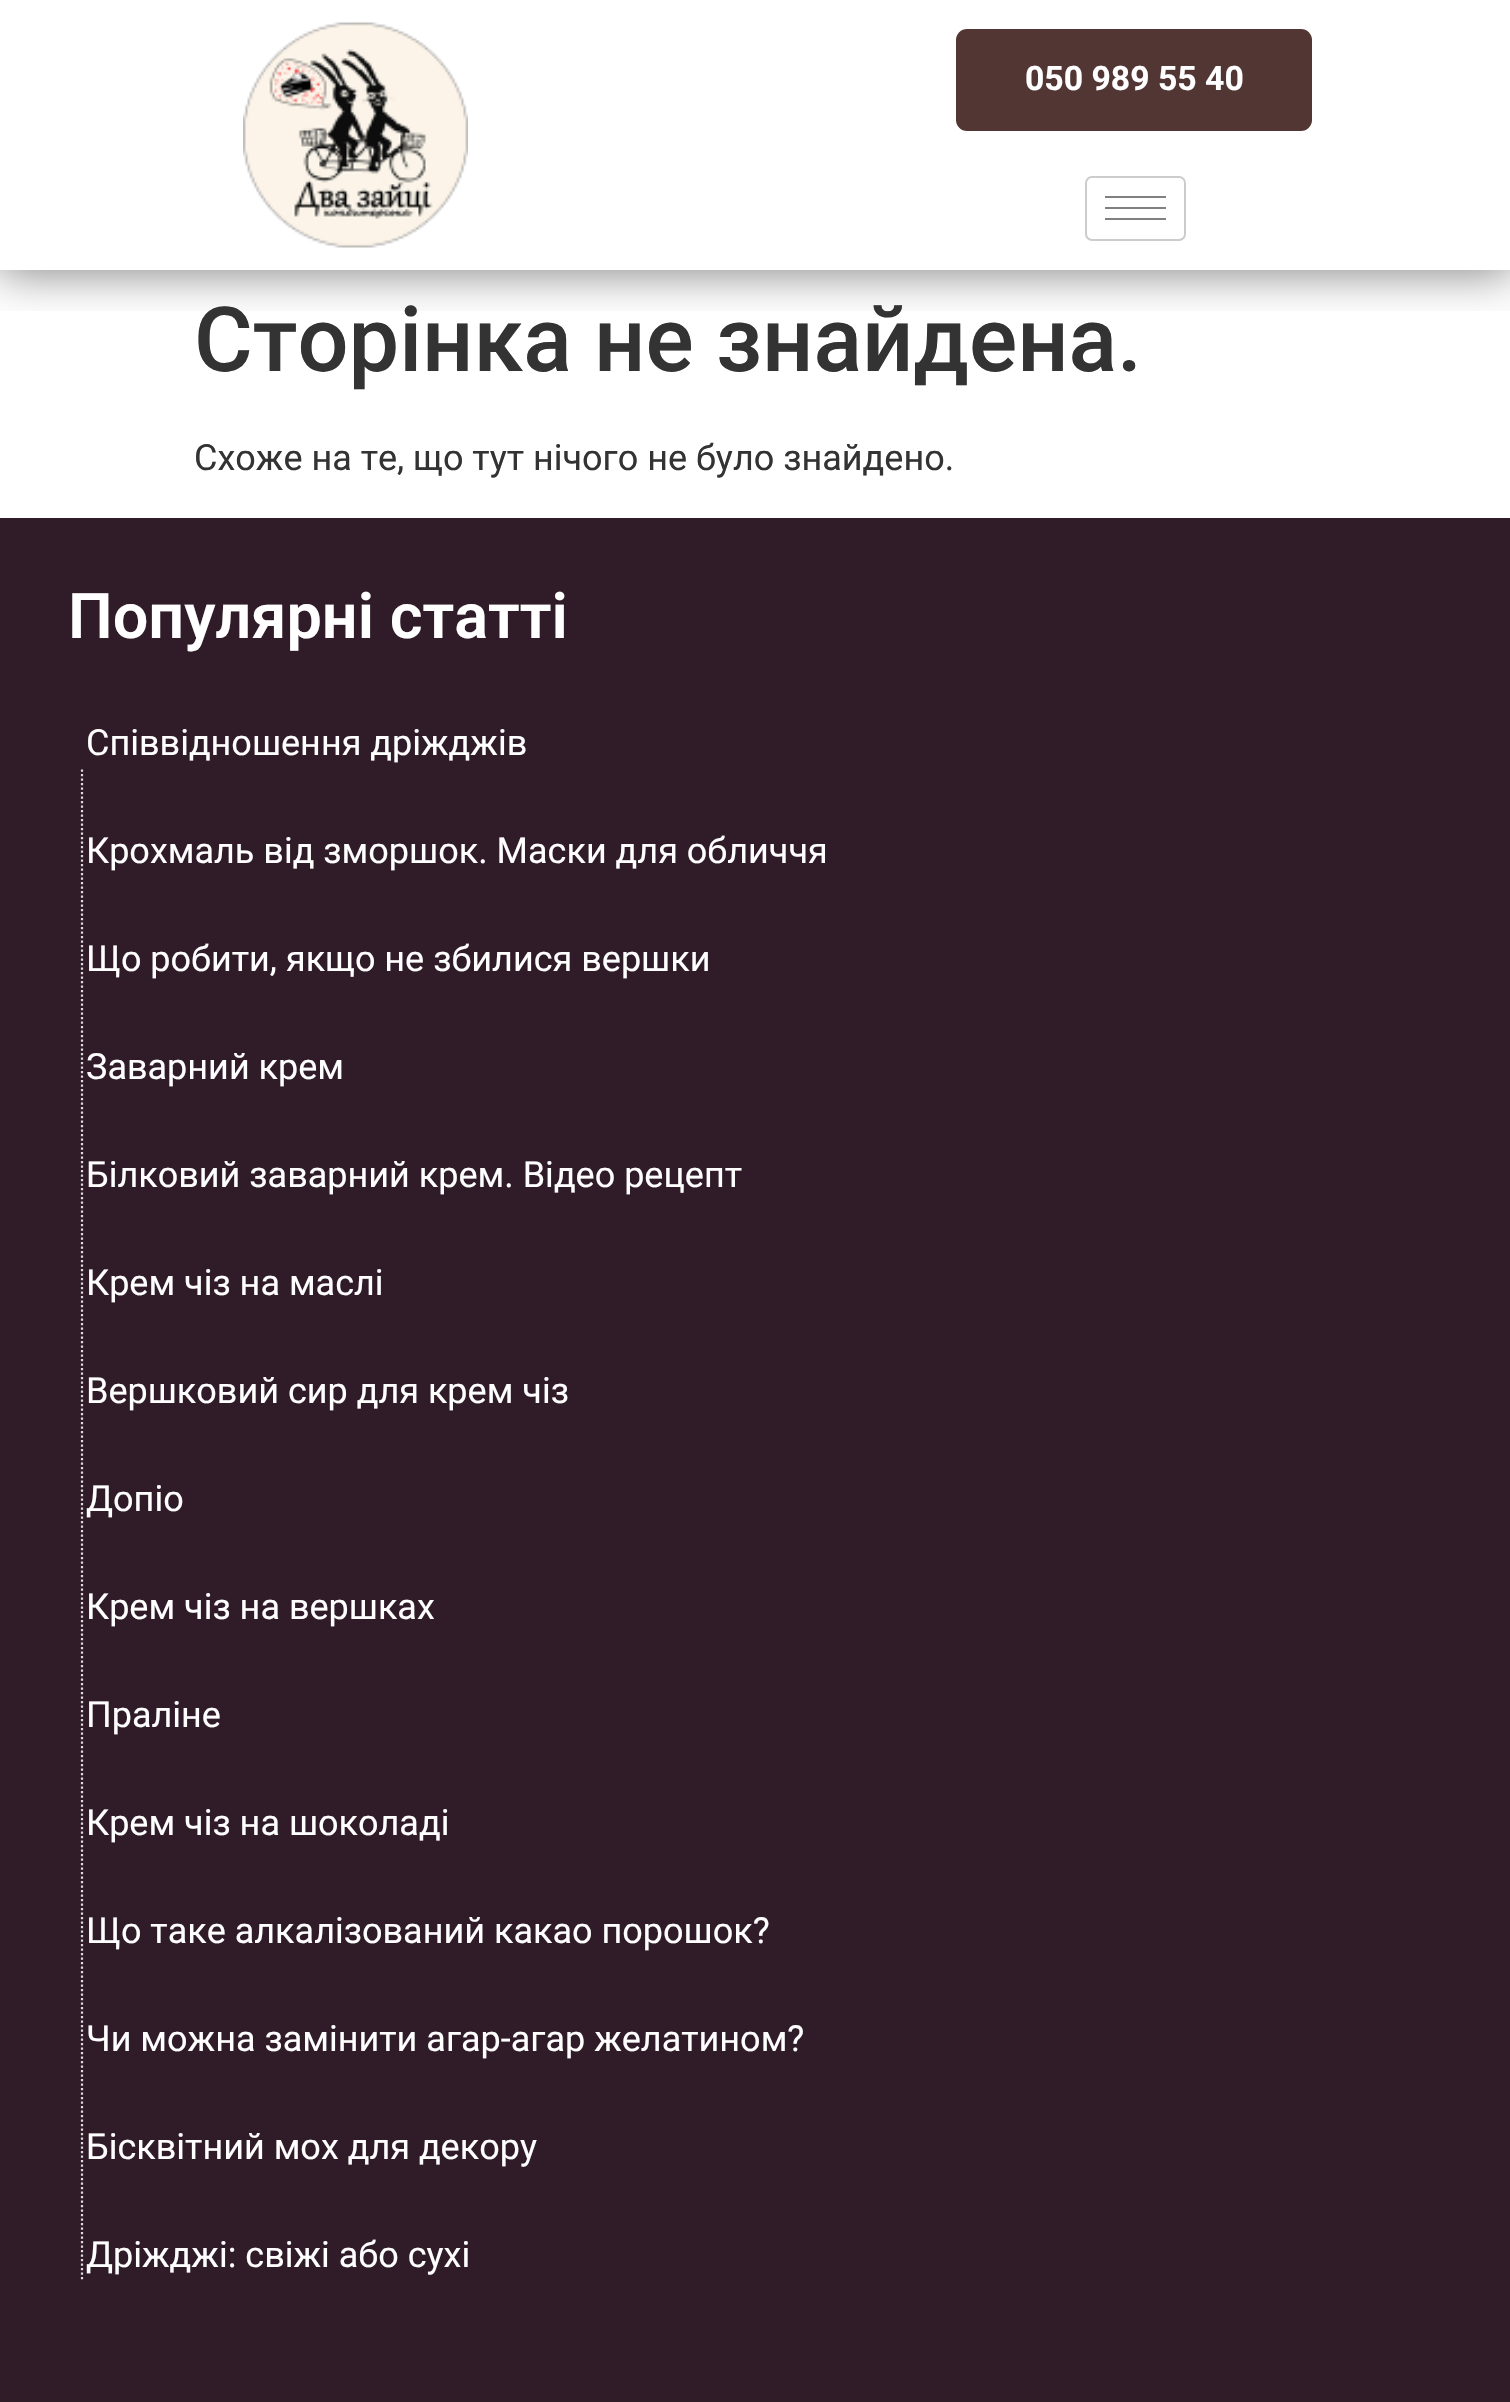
static SkFont makeFont(const char* family, int weight, float size, bool italic = false) {
  SkFontStyle style(weight, SkFontStyle::kNormal_Width,
    italic ? SkFontStyle::kItalic_Slant : SkFontStyle::kUpright_Slant);
  SkFont result(fontMgr->matchFamilyStyle(family, style), size);
  result.setSubpixel(true);
  return result;
}

static void text(SkCanvas* c, const char* s, float x, float y, const SkFont& font, SkColor color) {
  SkPaint ink(SkColor4f::FromColor(color));
  ink.setAntiAlias(true);
  c->drawString(s, x, y, font, ink);
}

static void box(SkCanvas* c, float l, float t, float r, float b, SkColor color) {
  SkPaint ink(SkColor4f::FromColor(color));
  ink.setAntiAlias(true);
  c->drawRect(SkRect::MakeLTRB(l, t, r, b), ink);
}

static void roundBox(SkCanvas* c, float l, float t, float r, float b, float radius, SkColor color) {
  SkPaint ink(SkColor4f::FromColor(color));
  ink.setAntiAlias(true);
  c->drawRoundRect(SkRect::MakeLTRB(l, t, r, b), radius, radius, ink);
}

static void picture(SkCanvas* c, const char* path, float l, float t, float r, float b) {
  auto image = SkImages::DeferredFromEncodedData(SkData::MakeFromFileName(path));
  c->drawImageRect(image, SkRect::MakeLTRB(l, t, r, b), SkSamplingOptions());
}

void draw(SkCanvas* c) {
  SkPaint paint;
  paint.setAntiAlias(true);
  c->clear(0xffffffff);
  c->save();
  c->clipRect(SkRect::MakeLTRB(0, 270, 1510, 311));
  paint.setColor(0x80000000);
  paint.setMaskFilter(SkMaskFilter::MakeBlur(kNormal_SkBlurStyle, 22.5f));
  c->drawRect(SkRect::MakeLTRB(-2, -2, 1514, 272), paint);
  paint.setMaskFilter(nullptr);
  c->restore();
  picture(c, "img_01.png", 243, 22, 468, 248);
  roundBox(c, 956, 29, 1312, 131, 11, 0xff523634);
  SkFont face1 = makeFont("Roboto", 700, 33.75f);
  text(c, "050 989 55 40", 1025, 90, face1, 0xffffffff);
  paint.setStyle(SkPaint::kStroke_Style);
  paint.setStrokeWidth(2);
  paint.setColor(0xffcccccc);
  c->drawRoundRect(SkRect::MakeLTRB(1086, 177, 1185, 240), 6, 6, paint);
  box(c, 1105, 196, 1166, 198, 0xff808080);
  box(c, 1105, 207, 1166, 209, 0xff808080);
  box(c, 1105, 218, 1166, 220, 0xff808080);
  SkFont face2 = makeFont("Roboto", 500, 90);
  text(c, "Сторінка не знайдена.", 194, 371, face2, 0xff333333);
  SkFont face3 = makeFont("Roboto", 400, 36);
  text(c, "Схоже на те, що тут нічого не було знайдено.", 194, 470, face3, 0xff333333);
  box(c, 0, 518, 1510, 2402, 0xff301b28);
  SkFont face4 = makeFont("Roboto", 600, 63);
  text(c, "Популярні статті", 68, 638, face4, 0xffffffff);
  text(c, "Співвідношення дріжджів", 86, 755, face3, 0xffffffff);
  paint.setStrokeWidth(2.2f);
  paint.setColor(0xffdddddd);
  paint.setPathEffect(SkDashPathEffect::Make({{2.25f, 2.25f}}, 0));
  c->drawPath(SkPathBuilder().moveTo(82, 769.5f).lineTo(82, 877.5f).detach(), paint);
  paint.setPathEffect(nullptr);
  text(c, "Крохмаль від зморшок. Маски для обличчя", 86, 863, face3, 0xffffffff);
  paint.setPathEffect(SkDashPathEffect::Make({{2.25f, 2.25f}}, 0));
  c->drawPath(SkPathBuilder().moveTo(82, 877.5f).lineTo(82, 985.5f).detach(), paint);
  paint.setPathEffect(nullptr);
  text(c, "Що робити, якщо не збилися вершки", 86, 971, face3, 0xffffffff);
  paint.setPathEffect(SkDashPathEffect::Make({{2.25f, 2.25f}}, 0));
  c->drawPath(SkPathBuilder().moveTo(82, 985.5f).lineTo(82, 1093.5f).detach(), paint);
  paint.setPathEffect(nullptr);
  text(c, "Заварний крем", 86, 1079, face3, 0xffffffff);
  paint.setPathEffect(SkDashPathEffect::Make({{2.25f, 2.25f}}, 0));
  c->drawPath(SkPathBuilder().moveTo(82, 1093.5f).lineTo(82, 1201.5f).detach(), paint);
  paint.setPathEffect(nullptr);
  text(c, "Білковий заварний крем. Відео рецепт", 86, 1187, face3, 0xffffffff);
  paint.setPathEffect(SkDashPathEffect::Make({{2.25f, 2.25f}}, 0));
  c->drawPath(SkPathBuilder().moveTo(82, 1201.5f).lineTo(82, 1309.5f).detach(), paint);
  paint.setPathEffect(nullptr);
  text(c, "Крем чіз на маслі", 86, 1295, face3, 0xffffffff);
  paint.setPathEffect(SkDashPathEffect::Make({{2.25f, 2.25f}}, 0));
  c->drawPath(SkPathBuilder().moveTo(82, 1309.5f).lineTo(82, 1417.5f).detach(), paint);
  paint.setPathEffect(nullptr);
  text(c, "Вершковий сир для крем чіз", 86, 1403, face3, 0xffffffff);
  paint.setPathEffect(SkDashPathEffect::Make({{2.25f, 2.25f}}, 0));
  c->drawPath(SkPathBuilder().moveTo(82, 1417.5f).lineTo(82, 1525.5f).detach(), paint);
  paint.setPathEffect(nullptr);
  text(c, "Допіо", 86, 1511, face3, 0xffffffff);
  paint.setPathEffect(SkDashPathEffect::Make({{2.25f, 2.25f}}, 0));
  c->drawPath(SkPathBuilder().moveTo(82, 1525.5f).lineTo(82, 1633.5f).detach(), paint);
  paint.setPathEffect(nullptr);
  text(c, "Крем чіз на вершках", 86, 1619, face3, 0xffffffff);
  paint.setPathEffect(SkDashPathEffect::Make({{2.25f, 2.25f}}, 0));
  c->drawPath(SkPathBuilder().moveTo(82, 1633.5f).lineTo(82, 1741.5f).detach(), paint);
  paint.setPathEffect(nullptr);
  text(c, "Праліне", 86, 1727, face3, 0xffffffff);
  paint.setPathEffect(SkDashPathEffect::Make({{2.25f, 2.25f}}, 0));
  c->drawPath(SkPathBuilder().moveTo(82, 1741.5f).lineTo(82, 1849.5f).detach(), paint);
  paint.setPathEffect(nullptr);
  text(c, "Крем чіз на шоколаді", 86, 1835, face3, 0xffffffff);
  paint.setPathEffect(SkDashPathEffect::Make({{2.25f, 2.25f}}, 0));
  c->drawPath(SkPathBuilder().moveTo(82, 1849.5f).lineTo(82, 1957.5f).detach(), paint);
  paint.setPathEffect(nullptr);
  text(c, "Що таке алкалізований какао порошок?", 86, 1943, face3, 0xffffffff);
  paint.setPathEffect(SkDashPathEffect::Make({{2.25f, 2.25f}}, 0));
  c->drawPath(SkPathBuilder().moveTo(82, 1957.5f).lineTo(82, 2065.5f).detach(), paint);
  paint.setPathEffect(nullptr);
  text(c, "Чи можна замінити агар-агар желатином?", 86, 2051, face3, 0xffffffff);
  paint.setPathEffect(SkDashPathEffect::Make({{2.25f, 2.25f}}, 0));
  c->drawPath(SkPathBuilder().moveTo(82, 2065.5f).lineTo(82, 2173.5f).detach(), paint);
  paint.setPathEffect(nullptr);
  text(c, "Бісквітний мох для декору", 86, 2159, face3, 0xffffffff);
  paint.setPathEffect(SkDashPathEffect::Make({{2.25f, 2.25f}}, 0));
  c->drawPath(SkPathBuilder().moveTo(82, 2173.5f).lineTo(82, 2281.5f).detach(), paint);
  paint.setPathEffect(nullptr);
  text(c, "Дріжджі: свіжі або сухі", 86, 2267, face3, 0xffffffff);
}
